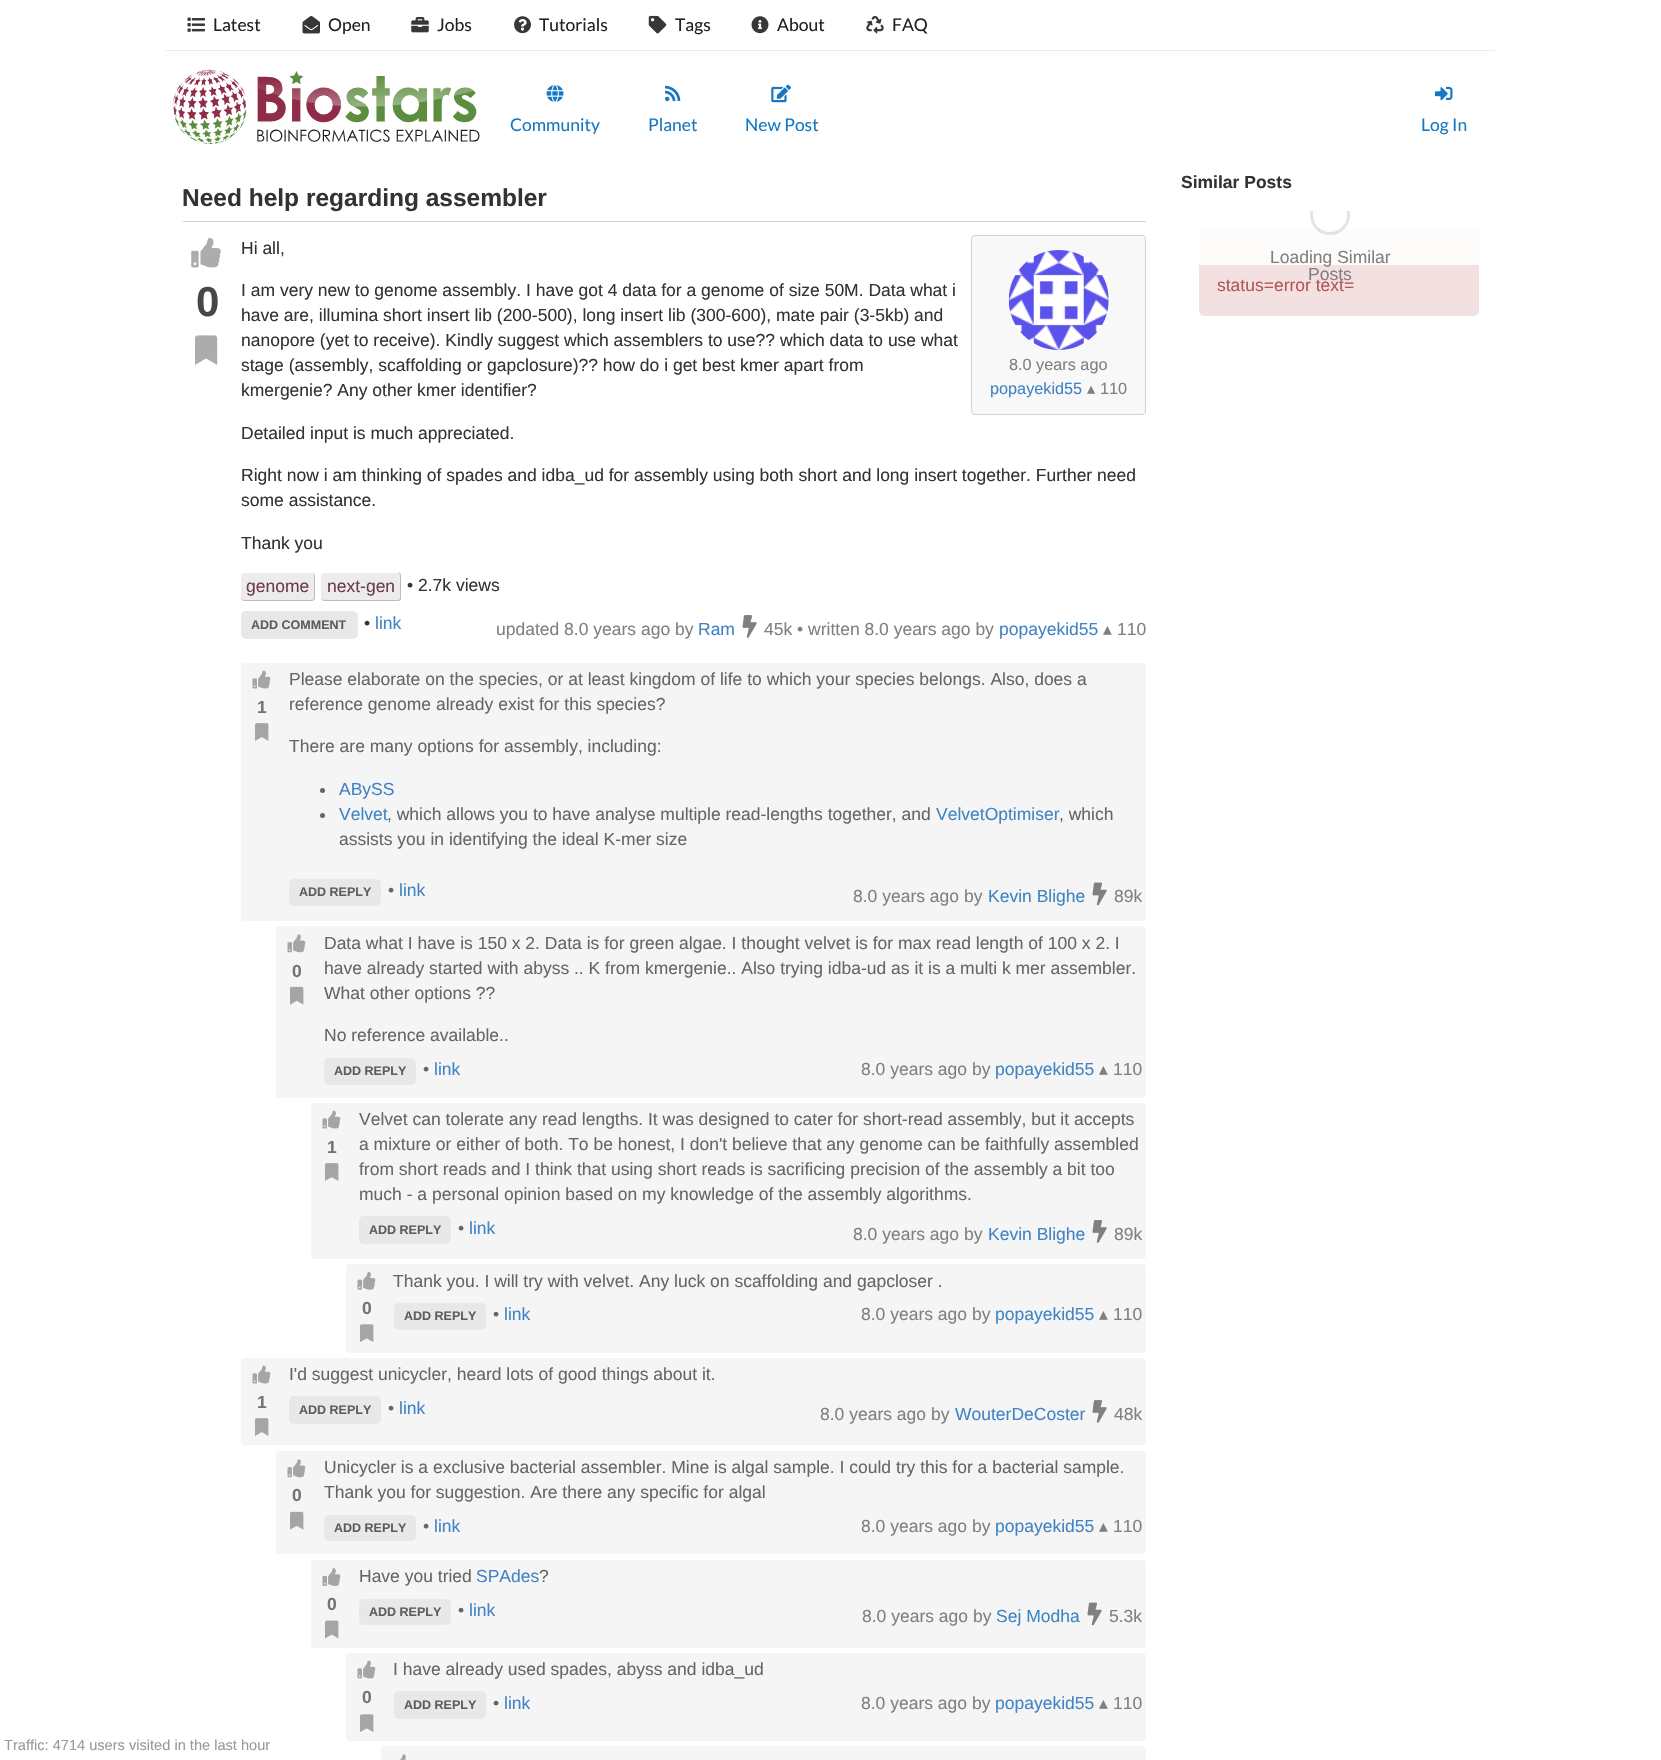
static SkFont makeFont(const char* family, int weight, float size, bool italic = false) {
  SkFontStyle style(weight, SkFontStyle::kNormal_Width,
    italic ? SkFontStyle::kItalic_Slant : SkFontStyle::kUpright_Slant);
  SkFont result(fontMgr->matchFamilyStyle(family, style), size);
  result.setSubpixel(true);
  return result;
}

static void text(SkCanvas* c, const char* s, float x, float y, const SkFont& font, SkColor color) {
  SkPaint ink(SkColor4f::FromColor(color));
  ink.setAntiAlias(true);
  c->drawString(s, x, y, font, ink);
}

static void box(SkCanvas* c, float l, float t, float r, float b, SkColor color) {
  SkPaint ink(SkColor4f::FromColor(color));
  ink.setAntiAlias(true);
  c->drawRect(SkRect::MakeLTRB(l, t, r, b), ink);
}

static void roundBox(SkCanvas* c, float l, float t, float r, float b, float radius, SkColor color) {
  SkPaint ink(SkColor4f::FromColor(color));
  ink.setAntiAlias(true);
  c->drawRoundRect(SkRect::MakeLTRB(l, t, r, b), radius, radius, ink);
}

static void picture(SkCanvas* c, const char* path, float l, float t, float r, float b) {
  auto image = SkImages::DeferredFromEncodedData(SkData::MakeFromFileName(path));
  c->drawImageRect(image, SkRect::MakeLTRB(l, t, r, b), SkSamplingOptions());
}

void draw(SkCanvas* c) {
  SkPaint paint;
  paint.setAntiAlias(true);
  c->clear(0xffffffff);
  box(c, 166, 50, 1495, 51, 0xffececec);
  picture(c, "img_01.png", 187, 17, 205, 32);
  SkFont face1 = makeFont("Lato", 400, 17.5f);
  text(c, "Latest", 213, 31, face1, 0xff212121);
  picture(c, "img_02.png", 302, 16, 320, 34);
  text(c, "Open", 328, 31, face1, 0xff212121);
  picture(c, "img_03.png", 411, 17, 429, 33);
  text(c, "Jobs", 437, 31, face1, 0xff212121);
  picture(c, "img_04.png", 514, 16, 531, 34);
  text(c, "Tutorials", 539, 31, face1, 0xff212121);
  picture(c, "img_05.png", 648, 15, 667, 34);
  text(c, "Tags", 675, 31, face1, 0xff212121);
  picture(c, "img_06.png", 751, 16, 769, 34);
  text(c, "About", 777, 31, face1, 0xff212121);
  picture(c, "img_07.png", 866, 16, 884, 34);
  text(c, "FAQ", 892, 31, face1, 0xff212121);
  picture(c, "img_08.png", 172, 69, 480, 144);
  picture(c, "img_09.png", 546, 85, 564, 102);
  text(c, "Community", 510, 131, face1, 0xff1678c2);
  picture(c, "img_10.png", 665, 85, 681, 102);
  text(c, "Planet", 648, 131, face1, 0xff1678c2);
  picture(c, "img_11.png", 771, 84, 791, 103);
  text(c, "New Post", 745, 131, face1, 0xff1678c2);
  picture(c, "img_12.png", 1435, 86, 1453, 101);
  text(c, "Log In", 1421, 131, face1, 0xff1678c2);
  box(c, 183, 221, 1146, 222, 0xffd3d3d3);
  SkFont face2 = makeFont("Liberation Sans", 700, 24.5f);
  text(c, "Need help regarding assembler", 182, 206, face2, 0xff333333);
  picture(c, "img_13.png", 191, 237, 221, 268);
  SkFont face3 = makeFont("Liberation Sans", 700, 42);
  text(c, "0", 196, 316, face3, 0xff474747);
  picture(c, "img_14.png", 195, 335, 218, 365);
  SkFont face4 = makeFont("Liberation Sans", 400, 17.5f);
  text(c, "Hi all,", 241, 254, face4, 0xff333333);
  text(c, "I am very new to genome assembly. I have got 4 data for a genome of size 50M. Data what i", 241, 296, face4, 0xff333333);
  text(c, "have are, illumina short insert lib (200-500), long insert lib (300-600), mate pair (3-5kb) and", 241, 321, face4, 0xff333333);
  text(c, "nanopore (yet to receive). Kindly suggest which assemblers to use?\077 which data to use what", 241, 346, face4, 0xff333333);
  text(c, "stage (assembly, scaffolding or gapclosure)?\077 how do i get best kmer apart from", 241, 371, face4, 0xff333333);
  text(c, "kmergenie? Any other kmer identifier?", 241, 396, face4, 0xff333333);
  text(c, "Detailed input is much appreciated.", 241, 439, face4, 0xff333333);
  text(c, "Right now i am thinking of spades and idba_ud for assembly using both short and long insert together. Further need", 241, 481, face4, 0xff333333);
  text(c, "some assistance.", 241, 506, face4, 0xff333333);
  text(c, "Thank you", 241, 549, face4, 0xff333333);
  paint.setColor(0xfff8f8f9);
  c->drawRoundRect(SkRect::MakeLTRB(971.5f, 235.5f, 1145.5f, 414.5f), 3.5f, 3.5f, paint);
  paint.setStyle(SkPaint::kStroke_Style);
  paint.setStrokeWidth(1);
  paint.setColor(0xffd3d3d3);
  c->drawRoundRect(SkRect::MakeLTRB(971.5f, 235.5f, 1145.5f, 414.5f), 3.5f, 3.5f, paint);
  picture(c, "img_15.png", 1008, 250, 1109, 350);
  SkFont face5 = makeFont("Liberation Sans", 400, 16.25f);
  text(c, "8.0 years ago", 1009, 370, face5, 0xff808080);
  text(c, "popayekid55", 990, 394, face5, 0xff4183c4);
  SkFont face6 = makeFont("DejaVu Sans", 400, 16.25f);
  text(c, "▴", 1087, 394, face6, 0xff808080);
  text(c, "110", 1100, 394, face5, 0xff808080);
  roundBox(c, 241, 573, 315, 601, 4, 0xffececec);
  paint.setStyle(SkPaint::kFill_Style);
  paint.setColor(0xffbbbbbb);
  c->drawPath(SkPathBuilder(SkPathFillType::kEvenOdd).moveTo(245, 572).lineTo(311, 572).cubicTo(313, 572, 315, 574, 315, 576).lineTo(315, 598).cubicTo(315, 600, 313, 601, 311, 601).lineTo(245, 601).cubicTo(243, 601, 241, 600, 241, 598).lineTo(241, 576).cubicTo(241, 574, 243, 572, 245, 572).close().moveTo(245, 572).lineTo(311, 572).cubicTo(313, 572, 314, 574, 314, 576).lineTo(314, 598).cubicTo(314, 599, 313, 600, 311, 600).lineTo(245, 600).cubicTo(243, 600, 241, 599, 241, 598).lineTo(241, 576).cubicTo(241, 574, 243, 572, 245, 572).close().detach(), paint);
  text(c, "genome", 246, 592, face4, 0xff6b3e4a);
  roundBox(c, 321, 573, 401, 601, 4, 0xffececec);
  c->drawPath(SkPathBuilder(SkPathFillType::kEvenOdd).moveTo(325, 572).lineTo(398, 572).cubicTo(400, 572, 401, 574, 401, 576).lineTo(401, 598).cubicTo(401, 600, 400, 601, 398, 601).lineTo(325, 601).cubicTo(323, 601, 321, 600, 321, 598).lineTo(321, 576).cubicTo(321, 574, 323, 572, 325, 572).close().moveTo(325, 572).lineTo(398, 572).cubicTo(399, 572, 400, 574, 400, 576).lineTo(400, 598).cubicTo(400, 599, 399, 600, 398, 600).lineTo(325, 600).cubicTo(323, 600, 321, 599, 321, 598).lineTo(321, 576).cubicTo(321, 574, 323, 572, 325, 572).close().detach(), paint);
  text(c, "next-gen", 327, 592, face4, 0xff6b3e4a);
  text(c, "• 2.7k views", 407, 591, face4, 0xff333333);
  roundBox(c, 241, 611, 358, 639, 5, 0xffe8e8e8);
  SkFont face7 = makeFont("Liberation Sans", 700, 12.5f);
  text(c, "ADD COMMENT", 251, 629, face7, 0xff5d5d5d);
  text(c, "•", 364, 629, face4, 0xff333333);
  text(c, "link", 375, 629, face4, 0xff4183c4);
  text(c, "updated 8.0 years ago by", 496, 635, face4, 0xff808080);
  text(c, "Ram", 698, 635, face4, 0xff4183c4);
  picture(c, "img_16.png", 742, 615, 757, 638);
  text(c, "45k • written 8.0 years ago by", 764, 635, face4, 0xff808080);
  text(c, "popayekid55", 999, 635, face4, 0xff4183c4);
  SkFont face8 = makeFont("DejaVu Sans", 400, 17.5f);
  text(c, "▴", 1103, 635, face8, 0xff808080);
  text(c, "110", 1117, 635, face4, 0xff808080);
  roundBox(c, 241, 663, 1146, 921, 4, 0xfff5f5f5);
  picture(c, "img_17.png", 252, 670, 271, 689);
  SkFont face9 = makeFont("Liberation Sans", 700, 17.5f);
  text(c, "1", 257, 713, face9, 0xff747474);
  picture(c, "img_18.png", 255, 723, 269, 741);
  text(c, "Please elaborate on the species, or at least kingdom of life to which your species belongs. Also, does a", 289, 685, face4, 0xff666666);
  text(c, "reference genome already exist for this species?", 289, 710, face4, 0xff666666);
  text(c, "There are many options for assembly, including:", 289, 752, face4, 0xff666666);
  paint.setColor(0xff666666);
  c->drawCircle(322.5f, 790.5f, 2.5f, paint);
  text(c, "ABySS", 339, 795, face4, 0xff4183c4);
  c->drawCircle(322.5f, 815.5f, 2.5f, paint);
  text(c, "Velvet", 339, 820, face4, 0xff4183c4);
  text(c, ", which allows you to have analyse multiple read-lengths together, and", 387, 820, face4, 0xff666666);
  text(c, "VelvetOptimiser", 936, 820, face4, 0xff4183c4);
  text(c, ", which", 1059, 820, face4, 0xff666666);
  text(c, "assists you in identifying the ideal K-mer size", 339, 845, face4, 0xff666666);
  roundBox(c, 289, 879, 381, 906, 5, 0xffe8e8e8);
  text(c, "ADD REPLY", 299, 896, face7, 0xff5d5d5d);
  text(c, "•", 388, 896, face4, 0xff666666);
  text(c, "link", 399, 896, face4, 0xff4183c4);
  text(c, "8.0 years ago by", 853, 902, face4, 0xff808080);
  text(c, "Kevin Blighe", 988, 902, face4, 0xff4183c4);
  picture(c, "img_19.png", 1092, 882, 1107, 906);
  text(c, "89k", 1114, 902, face4, 0xff808080);
  roundBox(c, 276, 926, 1146, 1098, 4, 0xfff5f5f5);
  picture(c, "img_20.png", 287, 934, 306, 953);
  text(c, "0", 292, 977, face9, 0xff747474);
  picture(c, "img_21.png", 290, 986, 304, 1005);
  text(c, "Data what I have is 150 x 2. Data is for green algae. I thought velvet is for max read length of 100 x 2. I", 324, 949, face4, 0xff666666);
  text(c, "have already started with abyss .. K from kmergenie.. Also trying idba-ud as it is a multi k mer assembler.", 324, 974, face4, 0xff666666);
  text(c, "What other options ?\077", 324, 999, face4, 0xff666666);
  text(c, "No reference available..", 324, 1041, face4, 0xff666666);
  roundBox(c, 324, 1058, 416, 1085, 5, 0xffe8e8e8);
  text(c, "ADD REPLY", 334, 1075, face7, 0xff5d5d5d);
  text(c, "•", 423, 1075, face4, 0xff666666);
  text(c, "link", 434, 1075, face4, 0xff4183c4);
  text(c, "8.0 years ago by", 861, 1075, face4, 0xff808080);
  text(c, "popayekid55", 995, 1075, face4, 0xff4183c4);
  text(c, "▴", 1099, 1075, face8, 0xff808080);
  text(c, "110", 1113, 1075, face4, 0xff808080);
  roundBox(c, 311, 1103, 1146, 1259, 4, 0xfff5f5f5);
  picture(c, "img_17.png", 322, 1110, 341, 1129);
  text(c, "1", 327, 1153, face9, 0xff747474);
  picture(c, "img_18.png", 325, 1163, 339, 1181);
  text(c, "Velvet can tolerate any read lengths. It was designed to cater for short-read assembly, but it accepts", 359, 1125, face4, 0xff666666);
  text(c, "a mixture or either of both. To be honest, I don't believe that any genome can be faithfully assembled", 359, 1150, face4, 0xff666666);
  text(c, "from short reads and I think that using short reads is sacrificing precision of the assembly a bit too", 359, 1175, face4, 0xff666666);
  text(c, "much - a personal opinion based on my knowledge of the assembly algorithms.", 359, 1200, face4, 0xff666666);
  roundBox(c, 359, 1216, 451, 1244, 5, 0xffe8e8e8);
  text(c, "ADD REPLY", 369, 1234, face7, 0xff5d5d5d);
  text(c, "•", 458, 1234, face4, 0xff666666);
  text(c, "link", 469, 1234, face4, 0xff4183c4);
  text(c, "8.0 years ago by", 853, 1240, face4, 0xff808080);
  text(c, "Kevin Blighe", 988, 1240, face4, 0xff4183c4);
  picture(c, "img_22.png", 1092, 1220, 1107, 1243);
  text(c, "89k", 1114, 1240, face4, 0xff808080);
  roundBox(c, 346, 1264, 1146, 1353, 4, 0xfff5f5f5);
  picture(c, "img_23.png", 357, 1271, 376, 1290);
  text(c, "0", 362, 1314, face9, 0xff747474);
  picture(c, "img_24.png", 360, 1324, 374, 1342);
  text(c, "Thank you. I will try with velvet. Any luck on scaffolding and gapcloser .", 393, 1287, face4, 0xff666666);
  roundBox(c, 394, 1303, 486, 1330, 5, 0xffe8e8e8);
  text(c, "ADD REPLY", 404, 1320, face7, 0xff5d5d5d);
  text(c, "•", 493, 1320, face4, 0xff666666);
  text(c, "link", 504, 1320, face4, 0xff4183c4);
  text(c, "8.0 years ago by", 861, 1320, face4, 0xff808080);
  text(c, "popayekid55", 995, 1320, face4, 0xff4183c4);
  text(c, "▴", 1099, 1320, face8, 0xff808080);
  text(c, "110", 1113, 1320, face4, 0xff808080);
  roundBox(c, 241, 1358, 1146, 1445, 4, 0xfff5f5f5);
  picture(c, "img_17.png", 252, 1365, 271, 1384);
  text(c, "1", 257, 1408, face9, 0xff747474);
  picture(c, "img_18.png", 255, 1418, 269, 1436);
  text(c, "I'd suggest unicycler, heard lots of good things about it.", 289, 1380, face4, 0xff666666);
  roundBox(c, 289, 1396, 381, 1424, 5, 0xffe8e8e8);
  text(c, "ADD REPLY", 299, 1414, face7, 0xff5d5d5d);
  text(c, "•", 388, 1414, face4, 0xff666666);
  text(c, "link", 399, 1414, face4, 0xff4183c4);
  text(c, "8.0 years ago by", 820, 1420, face4, 0xff808080);
  text(c, "WouterDeCoster", 955, 1420, face4, 0xff4183c4);
  picture(c, "img_22.png", 1092, 1400, 1107, 1423);
  text(c, "48k", 1114, 1420, face4, 0xff808080);
  roundBox(c, 276, 1451, 1146, 1554, 4, 0xfff5f5f5);
  picture(c, "img_20.png", 287, 1459, 306, 1478);
  text(c, "0", 292, 1501, face9, 0xff747474);
  picture(c, "img_21.png", 290, 1511, 304, 1530);
  text(c, "Unicycler is a exclusive bacterial assembler. Mine is algal sample. I could try this for a bacterial sample.", 324, 1473, face4, 0xff666666);
  text(c, "Thank you for suggestion. Are there any specific for algal", 324, 1498, face4, 0xff666666);
  roundBox(c, 324, 1515, 416, 1541, 5, 0xffe8e8e8);
  text(c, "ADD REPLY", 334, 1532, face7, 0xff5d5d5d);
  text(c, "•", 423, 1532, face4, 0xff666666);
  text(c, "link", 434, 1532, face4, 0xff4183c4);
  text(c, "8.0 years ago by", 861, 1532, face4, 0xff808080);
  text(c, "popayekid55", 995, 1532, face4, 0xff4183c4);
  text(c, "▴", 1099, 1532, face8, 0xff808080);
  text(c, "110", 1113, 1532, face4, 0xff808080);
  roundBox(c, 311, 1560, 1146, 1648, 4, 0xfff5f5f5);
  picture(c, "img_25.png", 322, 1568, 341, 1586);
  text(c, "0", 327, 1610, face9, 0xff747474);
  picture(c, "img_26.png", 325, 1620, 339, 1639);
  text(c, "Have you tried", 359, 1582, face4, 0xff666666);
  text(c, "SPAdes", 476, 1582, face4, 0xff4183c4);
  text(c, "?", 539, 1582, face4, 0xff666666);
  roundBox(c, 359, 1599, 451, 1625, 5, 0xffe8e8e8);
  text(c, "ADD REPLY", 369, 1616, face7, 0xff5d5d5d);
  text(c, "•", 458, 1616, face4, 0xff666666);
  text(c, "link", 469, 1616, face4, 0xff4183c4);
  text(c, "8.0 years ago by", 862, 1622, face4, 0xff808080);
  text(c, "Sej Modha", 996, 1622, face4, 0xff4183c4);
  picture(c, "img_19.png", 1087, 1602, 1102, 1626);
  text(c, "5.3k", 1109, 1622, face4, 0xff808080);
  roundBox(c, 346, 1653, 1146, 1741, 4, 0xfff5f5f5);
  picture(c, "img_17.png", 357, 1660, 376, 1679);
  text(c, "0", 362, 1703, face9, 0xff747474);
  picture(c, "img_24.png", 360, 1714, 374, 1732);
  text(c, "I have already used spades, abyss and idba_ud", 393, 1675, face4, 0xff666666);
  roundBox(c, 394, 1691, 486, 1719, 5, 0xffe8e8e8);
  text(c, "ADD REPLY", 404, 1709, face7, 0xff5d5d5d);
  text(c, "•", 493, 1709, face4, 0xff666666);
  text(c, "link", 504, 1709, face4, 0xff4183c4);
  text(c, "8.0 years ago by", 861, 1709, face4, 0xff808080);
  text(c, "popayekid55", 995, 1709, face4, 0xff4183c4);
  text(c, "▴", 1099, 1709, face8, 0xff808080);
  text(c, "110", 1113, 1709, face4, 0xff808080);
  roundBox(c, 381, 1746, 1146, 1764, 4, 0xfff5f5f5);
  picture(c, "img_27.png", 400, 1754, 406, 1760);
  text(c, "Similar Posts", 1181, 188, face9, 0xff333333);
  roundBox(c, 1199, 229, 1479, 316, 5, 0xfff3e1e1);
  box(c, 1199, 229, 1479, 265, 0xd9ffffff);
  c->save();
  c->clipRect(SkRect::MakeLTRB(1181, 211, 1479, 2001));
  paint.setStyle(SkPaint::kStroke_Style);
  paint.setStrokeWidth(3);
  paint.setColor(0x1a000000);
  c->drawCircle(1330, 215, 18.5f, paint);
  c->restore();
  text(c, "Loading Similar", 1270, 263, face4, 0xff808080);
  text(c, "Posts", 1308, 280, face4, 0xff808080);
  text(c, "status=error text=", 1217, 291, face4, 0xffb25755);
  SkFont face10 = makeFont("Liberation Sans", 400, 14.6f);
  text(c, "Traffic: 4714 users visited in the last hour", 4, 1750, face10, 0xff999999);
}
